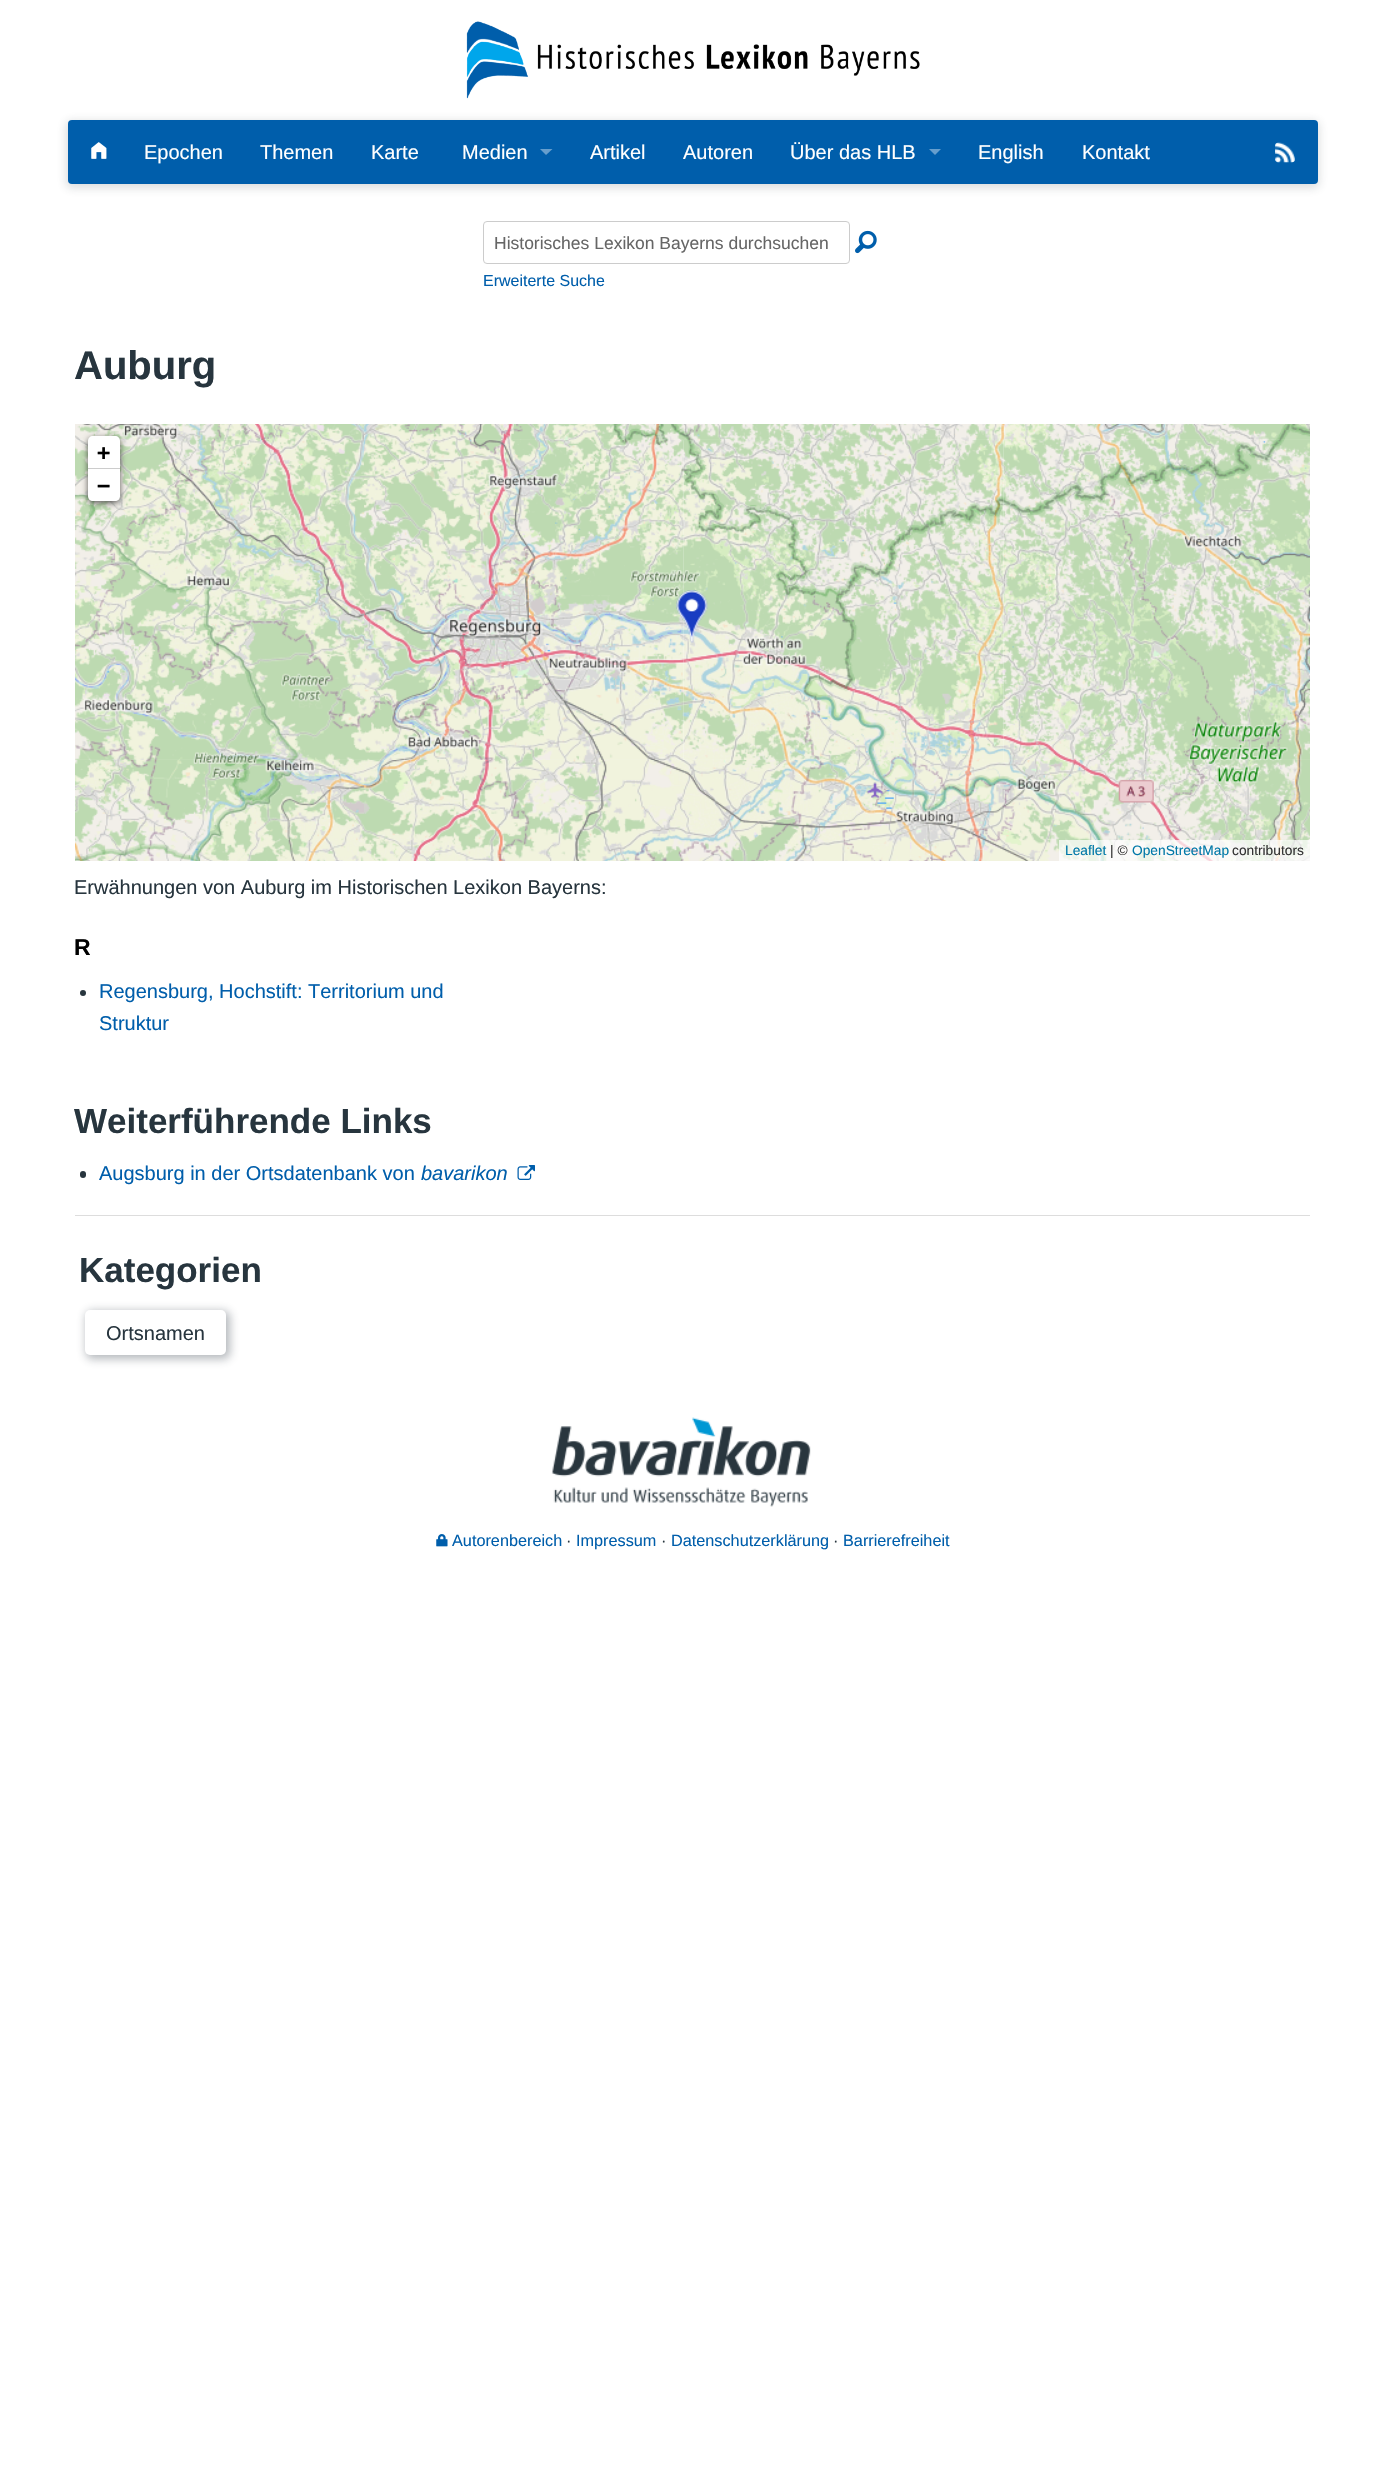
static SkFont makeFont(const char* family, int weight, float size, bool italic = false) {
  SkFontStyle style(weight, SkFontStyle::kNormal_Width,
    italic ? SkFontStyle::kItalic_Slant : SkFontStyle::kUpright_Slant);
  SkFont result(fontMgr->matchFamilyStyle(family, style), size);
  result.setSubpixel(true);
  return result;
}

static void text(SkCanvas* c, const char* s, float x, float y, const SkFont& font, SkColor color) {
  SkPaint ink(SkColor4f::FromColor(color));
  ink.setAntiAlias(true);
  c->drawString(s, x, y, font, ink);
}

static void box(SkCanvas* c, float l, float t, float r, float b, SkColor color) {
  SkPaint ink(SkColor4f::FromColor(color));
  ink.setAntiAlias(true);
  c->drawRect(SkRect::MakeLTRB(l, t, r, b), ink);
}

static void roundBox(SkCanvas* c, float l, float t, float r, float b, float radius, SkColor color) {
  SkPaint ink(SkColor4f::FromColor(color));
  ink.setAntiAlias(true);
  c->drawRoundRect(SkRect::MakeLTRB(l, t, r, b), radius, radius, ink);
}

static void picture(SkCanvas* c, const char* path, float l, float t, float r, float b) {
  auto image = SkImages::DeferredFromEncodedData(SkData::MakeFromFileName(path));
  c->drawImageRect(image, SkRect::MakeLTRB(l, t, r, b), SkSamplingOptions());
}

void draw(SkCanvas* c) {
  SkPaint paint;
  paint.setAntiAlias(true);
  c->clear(0xffffffff);
  picture(c, "img_01.png", 466, 21, 920, 99);
  paint.setColor(0x2b27353e);
  paint.setMaskFilter(SkMaskFilter::MakeBlur(kNormal_SkBlurStyle, 5));
  c->drawRoundRect(SkRect::MakeLTRB(66, 121, 1319, 188), 5, 5, paint);
  paint.setMaskFilter(nullptr);
  roundBox(c, 68, 120, 1318, 184, 4, 0xff005eab);
  picture(c, "img_02.png", 91, 142, 107, 159);
  SkFont face1 = makeFont("Liberation Sans", 400, 20);
  text(c, "Epochen", 144, 159, face1, 0xffffffff);
  text(c, "Themen", 260, 159, face1, 0xffffffff);
  text(c, "Karte", 371, 159, face1, 0xffffffff);
  text(c, "Medien", 462, 159, face1, 0xffffffff);
  paint.setColor(0xff669ecd);
  c->drawPath(SkPathBuilder().moveTo(540, 149).lineTo(552.5f, 149).lineTo(546, 155).close().detach(), paint);
  text(c, "Artikel", 590, 159, face1, 0xffffffff);
  text(c, "Autoren", 683, 159, face1, 0xffffffff);
  text(c, "Über das HLB", 790, 159, face1, 0xffffffff);
  c->drawPath(SkPathBuilder().moveTo(929, 149).lineTo(941, 149).lineTo(935, 155).close().detach(), paint);
  text(c, "English", 978, 159, face1, 0xffffffff);
  text(c, "Kontakt", 1082, 159, face1, 0xffffffff);
  picture(c, "img_03.png", 1275, 142, 1295, 163);
  paint.setStyle(SkPaint::kStroke_Style);
  paint.setStrokeWidth(1);
  paint.setColor(0xffcccccc);
  c->drawRoundRect(SkRect::MakeLTRB(483.5f, 221.5f, 849.5f, 263.5f), 3.5f, 3.5f, paint);
  SkFont face2 = makeFont("Liberation Sans", 400, 17.5f);
  text(c, "Historisches Lexikon Bayerns durchsuchen", 494, 249, face2, 0xff666666);
  picture(c, "img_04.png", 855, 230, 877, 254);
  SkFont face3 = makeFont("Liberation Sans", 400, 16);
  text(c, "Erweiterte Suche", 483, 286, face3, 0xff005eab);
  SkFont face4 = makeFont("Liberation Sans", 700, 40);
  text(c, "Auburg", 74, 379, face4, 0xff27353e);
  picture(c, "img_10.png", 363, 440, 684, 760);
  picture(c, "img_11.png", 683, 440, 1004, 760);
  picture(c, "img_06.png", 363, 424, 684, 441);
  picture(c, "img_09.png", 75, 440, 364, 760);
  picture(c, "img_05.png", 75, 424, 364, 441);
  picture(c, "img_07.png", 683, 424, 1004, 441);
  picture(c, "img_14.png", 364, 760, 684, 861);
  picture(c, "img_15.png", 683, 760, 1004, 861);
  picture(c, "img_12.png", 1003, 440, 1310, 761);
  picture(c, "img_08.png", 1003, 424, 1310, 441);
  picture(c, "img_13.png", 75, 760, 364, 861);
  picture(c, "img_16.png", 1003, 760, 1310, 861);
  picture(c, "img_17.png", 676, 590, 708, 643);
  paint.setStyle(SkPaint::kFill_Style);
  paint.setColor(0xa6000000);
  paint.setMaskFilter(SkMaskFilter::MakeBlur(kNormal_SkBlurStyle, 3));
  c->drawRoundRect(SkRect::MakeLTRB(88, 438, 120, 503), 5, 5, paint);
  paint.setMaskFilter(nullptr);
  paint.setColor(0xffffffff);
  c->drawPath(SkPathBuilder().moveTo(93, 436).lineTo(115, 436).cubicTo(118, 436, 120, 438, 120, 441).lineTo(120, 469).lineTo(88, 469).lineTo(88, 441).cubicTo(88, 438, 90, 436, 93, 436).close().detach(), paint);
  box(c, 88, 468, 120, 469, 0xffcccccc);
  SkFont face5 = makeFont("DejaVu Sans Mono", 700, 22);
  text(c, "+", 97, 460, face5, 0xff000000);
  c->drawPath(SkPathBuilder().moveTo(88, 469).lineTo(120, 469).lineTo(120, 496).cubicTo(120, 499, 118, 501, 115, 501).lineTo(93, 501).cubicTo(90, 501, 88, 499, 88, 496).close().detach(), paint);
  text(c, "−", 97, 493, face5, 0xff000000);
  box(c, 1059, 840, 1310, 861, 0xb3ffffff);
  SkFont face6 = makeFont("Liberation Sans", 400, 13.75f);
  text(c, "Leaflet", 1065, 855, face6, 0xff0078a8);
  text(c, "| ©", 1110, 855, face6, 0xff333333);
  text(c, "OpenStreetMap", 1132, 855, face6, 0xff0078a8);
  text(c, "contributors", 1232, 855, face6, 0xff333333);
  text(c, "Erwähnungen von Auburg im Historischen Lexikon Bayerns:", 74, 894, face1, 0xff27353e);
  SkFont face7 = makeFont("Liberation Sans", 700, 23);
  text(c, "R", 74, 955, face7, 0xff000000);
  paint.setColor(0xff27353e);
  c->drawCircle(83, 993, 3, paint);
  text(c, "Regensburg, Hochstift: Territorium und", 99, 998, face1, 0xff005eab);
  text(c, "Struktur", 99, 1030, face1, 0xff005eab);
  SkFont face8 = makeFont("Liberation Sans", 700, 35);
  text(c, "Weiterführende Links", 74, 1133, face8, 0xff27353e);
  roundBox(c, 80, 1171, 86, 1178, 3, 0xff27353e);
  text(c, "Augsburg in der Ortsdatenbank von", 99, 1180, face1, 0xff005eab);
  SkFont face9 = makeFont("Liberation Sans", 400, 20, true);
  text(c, "bavarikon", 421, 1180, face9, 0xff005eab);
  picture(c, "img_18.png", 517, 1165, 535, 1180);
  box(c, 75, 1215, 1310, 1216, 0xffdddddd);
  text(c, "Kategorien", 79, 1282, face8, 0xff27353e);
  paint.setColor(0x5927353e);
  paint.setMaskFilter(SkMaskFilter::MakeBlur(kNormal_SkBlurStyle, 5));
  c->drawRoundRect(SkRect::MakeLTRB(86, 1311, 230, 1359), 6, 6, paint);
  paint.setMaskFilter(nullptr);
  roundBox(c, 85, 1310, 226, 1355, 5, 0xffffffff);
  text(c, "Ortsnamen", 106, 1340, face1, 0xff27353e);
  picture(c, "img_19.png", 551, 1417, 811, 1507);
  picture(c, "img_20.png", 436, 1534, 448, 1547);
  SkFont face10 = makeFont("Liberation Sans", 400, 16.25f);
  text(c, "Autorenbereich", 452, 1546, face10, 0xff005eab);
  text(c, "·", 566, 1546, face10, 0xff27353e);
  text(c, "Impressum", 576, 1546, face10, 0xff005eab);
  text(c, "·", 661, 1546, face10, 0xff27353e);
  text(c, "Datenschutzerklärung", 671, 1546, face10, 0xff005eab);
  text(c, "·", 833, 1546, face10, 0xff27353e);
  text(c, "Barrierefreiheit", 843, 1546, face10, 0xff005eab);
}
